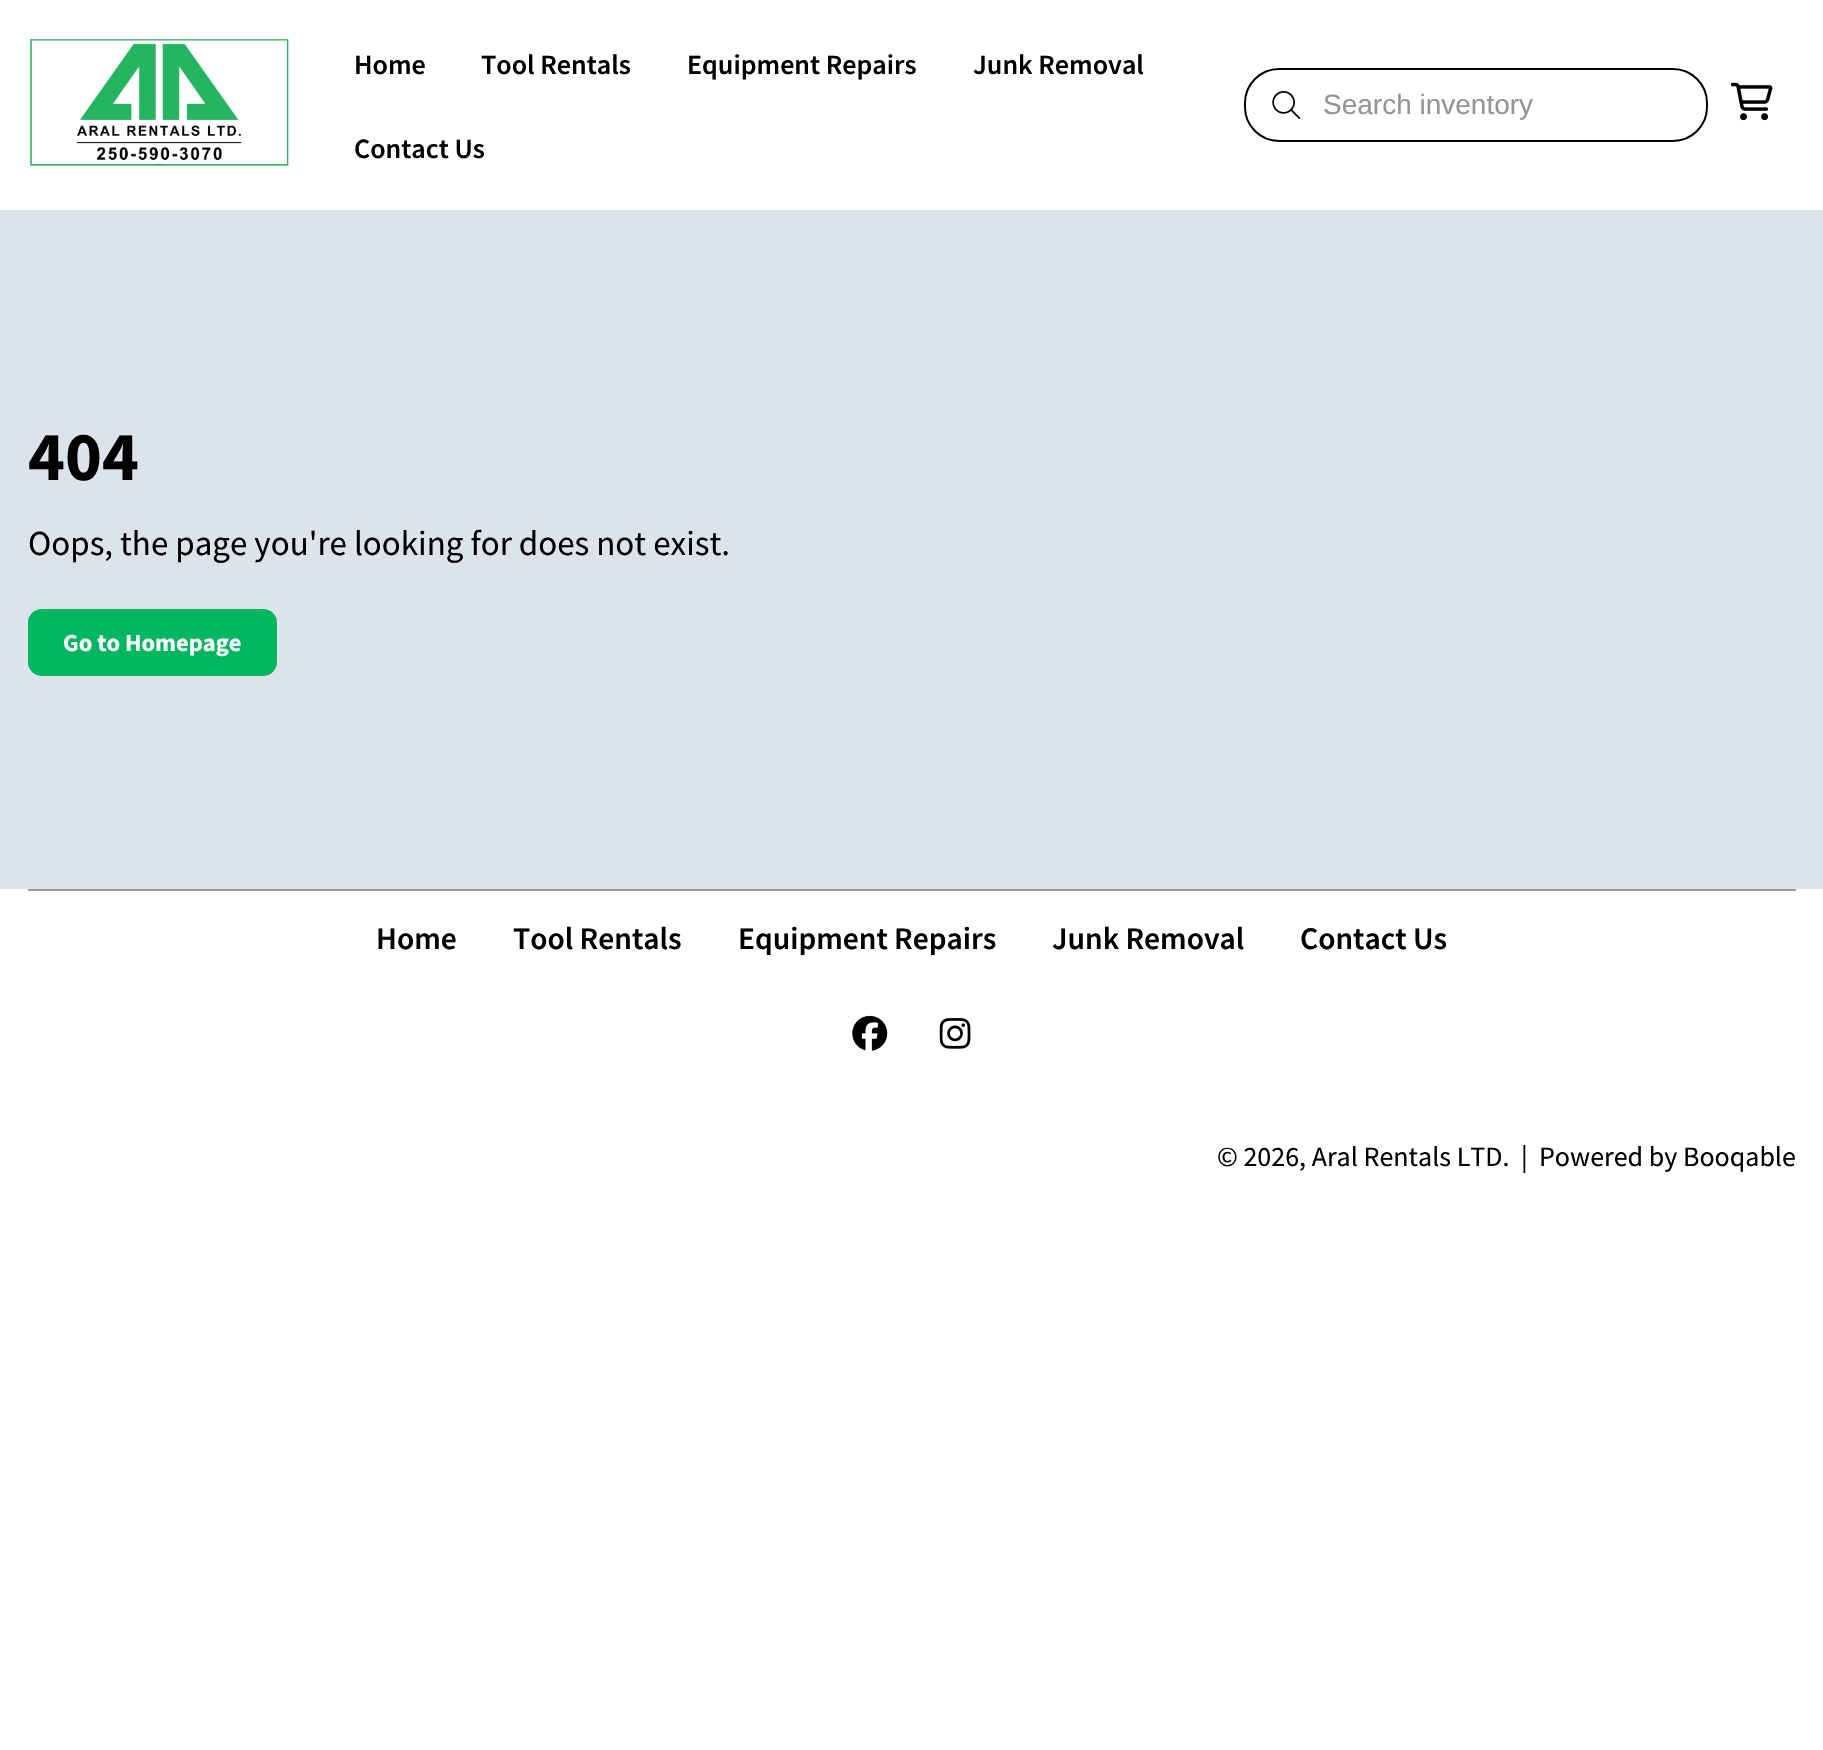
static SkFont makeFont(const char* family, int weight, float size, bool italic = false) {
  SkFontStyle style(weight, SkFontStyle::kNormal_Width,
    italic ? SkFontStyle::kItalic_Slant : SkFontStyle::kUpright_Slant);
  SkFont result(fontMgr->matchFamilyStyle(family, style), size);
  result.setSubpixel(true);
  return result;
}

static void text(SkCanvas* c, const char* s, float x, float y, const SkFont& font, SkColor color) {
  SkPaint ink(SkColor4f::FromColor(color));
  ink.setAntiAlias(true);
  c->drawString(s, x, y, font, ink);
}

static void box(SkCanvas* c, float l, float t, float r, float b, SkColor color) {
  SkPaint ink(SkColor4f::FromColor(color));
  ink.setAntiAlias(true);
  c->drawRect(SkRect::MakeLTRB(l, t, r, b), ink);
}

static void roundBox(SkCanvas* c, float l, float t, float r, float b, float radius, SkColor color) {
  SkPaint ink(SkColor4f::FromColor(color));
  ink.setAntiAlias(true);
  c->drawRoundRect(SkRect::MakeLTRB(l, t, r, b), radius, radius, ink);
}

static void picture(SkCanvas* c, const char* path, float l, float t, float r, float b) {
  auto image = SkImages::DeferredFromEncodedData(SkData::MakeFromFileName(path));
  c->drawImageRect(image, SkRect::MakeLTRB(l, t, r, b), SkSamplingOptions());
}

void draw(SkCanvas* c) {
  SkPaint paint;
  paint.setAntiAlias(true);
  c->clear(0xffffffff);
  picture(c, "img_01.png", 30, 39, 289, 166);
  SkFont face1 = makeFont("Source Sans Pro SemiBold", 600, 28);
  text(c, "Home", 354, 74, face1, 0xff000000);
  text(c, "Tool Rentals", 481, 74, face1, 0xff000000);
  text(c, "Equipment Repairs", 687, 74, face1, 0xff000000);
  text(c, "Junk Removal", 973, 74, face1, 0xff000000);
  text(c, "Contact Us", 354, 158, face1, 0xff000000);
  paint.setStyle(SkPaint::kStroke_Style);
  paint.setStrokeWidth(2);
  paint.setColor(0xff000000);
  c->drawRoundRect(SkRect::MakeLTRB(1245, 69, 1707, 141), 34, 34, paint);
  picture(c, "img_02.png", 1272, 91, 1301, 119);
  SkFont face2 = makeFont("Liberation Sans", 400, 28);
  text(c, "Search inventory", 1323, 114, face2, 0xff949494);
  picture(c, "img_03.png", 1731, 82, 1773, 121);
  box(c, 0, 210, 1823, 889, 0xffdde3eb);
  SkFont face3 = makeFont("Source Sans Pro", 700, 70);
  text(c, "404", 28, 480, face3, 0xff000000);
  SkFont face4 = makeFont("Source Sans Pro", 400, 35);
  text(c, "Oops, the page you're looking for does not exist.", 28, 555, face4, 0xff000000);
  roundBox(c, 28, 609, 277, 676, 14, 0xff00b65f);
  SkFont face5 = makeFont("Source Sans Pro", 700, 24.5f);
  text(c, "Go to Homepage", 63, 651, face5, 0xffffffff);
  box(c, 28, 889, 1796, 891, 0xff999999);
  SkFont face6 = makeFont("Source Sans Pro SemiBold", 600, 31.5f);
  text(c, "Home", 376, 949, face6, 0xff000000);
  text(c, "Tool Rentals", 513, 949, face6, 0xff000000);
  text(c, "Equipment Repairs", 738, 949, face6, 0xff000000);
  text(c, "Junk Removal", 1052, 949, face6, 0xff000000);
  text(c, "Contact Us", 1300, 949, face6, 0xff000000);
  picture(c, "img_04.png", 852, 1015, 888, 1051);
  picture(c, "img_05.png", 939, 1018, 971, 1049);
  SkFont face7 = makeFont("Source Sans Pro", 400, 28);
  text(c, "© 2026, Aral Rentals LTD.", 1217, 1166, face7, 0xff000000);
  text(c, "|", 1521, 1166, face7, 0xff000000);
  text(c, "Powered by Booqable", 1539, 1166, face7, 0xff000000);
}
